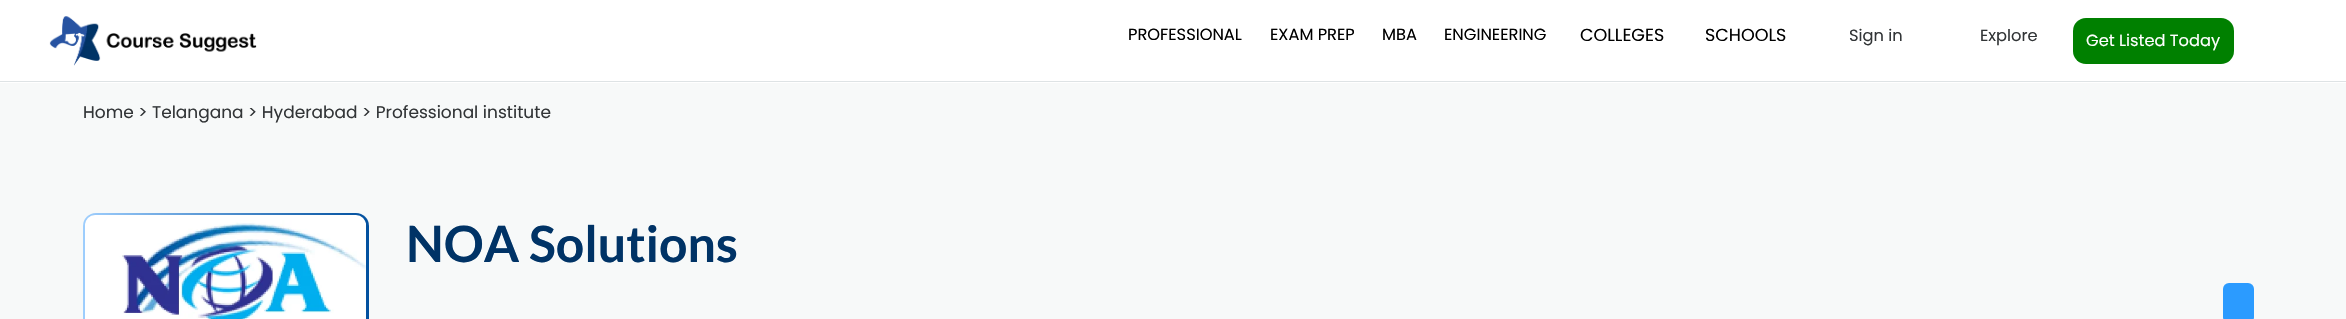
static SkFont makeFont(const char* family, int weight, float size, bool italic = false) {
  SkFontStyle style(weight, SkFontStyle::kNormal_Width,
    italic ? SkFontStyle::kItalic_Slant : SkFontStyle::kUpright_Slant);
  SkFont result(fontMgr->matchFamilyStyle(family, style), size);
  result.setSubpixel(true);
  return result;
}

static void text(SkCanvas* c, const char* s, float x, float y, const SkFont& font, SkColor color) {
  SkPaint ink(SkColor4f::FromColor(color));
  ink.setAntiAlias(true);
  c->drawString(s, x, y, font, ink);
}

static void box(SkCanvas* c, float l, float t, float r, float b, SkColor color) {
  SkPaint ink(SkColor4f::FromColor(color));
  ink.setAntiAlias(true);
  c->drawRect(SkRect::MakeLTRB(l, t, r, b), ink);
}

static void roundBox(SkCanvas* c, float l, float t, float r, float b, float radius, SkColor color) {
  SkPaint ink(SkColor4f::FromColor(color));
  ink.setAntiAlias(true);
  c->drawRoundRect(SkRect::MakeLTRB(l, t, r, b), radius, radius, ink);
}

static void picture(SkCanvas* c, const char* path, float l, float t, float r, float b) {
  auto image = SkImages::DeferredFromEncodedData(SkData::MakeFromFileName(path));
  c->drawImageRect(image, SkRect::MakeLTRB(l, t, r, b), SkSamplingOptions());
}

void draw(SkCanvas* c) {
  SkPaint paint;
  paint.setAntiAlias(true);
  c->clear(0xfff7f9f9);
  box(c, 0, 0, 2346, 83, 0xffffffff);
  box(c, 0, 81, 2346, 82, 0xffdee3e5);
  picture(c, "img_01.png", 49, 16, 257, 66);
  SkFont face1 = makeFont("Poppins", 400, 16.25f);
  text(c, "PROFESSIONAL", 1128, 40, face1, 0xff000000);
  text(c, "EXAM PREP", 1270, 40, face1, 0xff000000);
  text(c, "MBA", 1382, 40, face1, 0xff000000);
  text(c, "ENGINEERING", 1444, 40, face1, 0xff000000);
  SkFont face2 = makeFont("Poppins", 400, 17.5f);
  text(c, "COLLEGES", 1580, 41, face2, 0xff000000);
  text(c, "SCHOOLS", 1705, 41, face2, 0xff000000);
  text(c, "Sign in", 1849, 41, face1, 0xff323537);
  text(c, "Explore", 1980, 41, face1, 0xff323537);
  roundBox(c, 2073, 18, 2234, 64, 13, 0xff008000);
  text(c, "Get Listed Today", 2086, 46, face1, 0xffffffff);
  SkFont face3 = makeFont("Poppins", 400, 17);
  text(c, "Home > Telangana > Hyderabad > Professional institute", 83, 118, face3, 0xff323537);
  {
    const SkColor colors[] = {0xff01509f, 0xff9ecefd};
    const float stops[] = {0, 1};
    const SkPoint ends[] = {{369, 288}, {83, 288}};
    paint.setShader(SkGradientShader::MakeLinear(ends, colors, stops, 2, SkTileMode::kClamp));
    paint.setAlpha(255);
  }
  c->drawRoundRect(SkRect::MakeLTRB(83, 213, 369, 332), 13, 13, paint);
  roundBox(c, 85, 215, 366, 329, 10, 0xffffffff);
  picture(c, "img_02.png", 85, 220, 366, 319);
  SkFont face4 = makeFont("Lato", 700, 50);
  text(c, "NOA Solutions", 406, 262, face4, 0xff003366);
  roundBox(c, 2223, 283, 2254, 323, 6, 0xff2b9bff);
}
